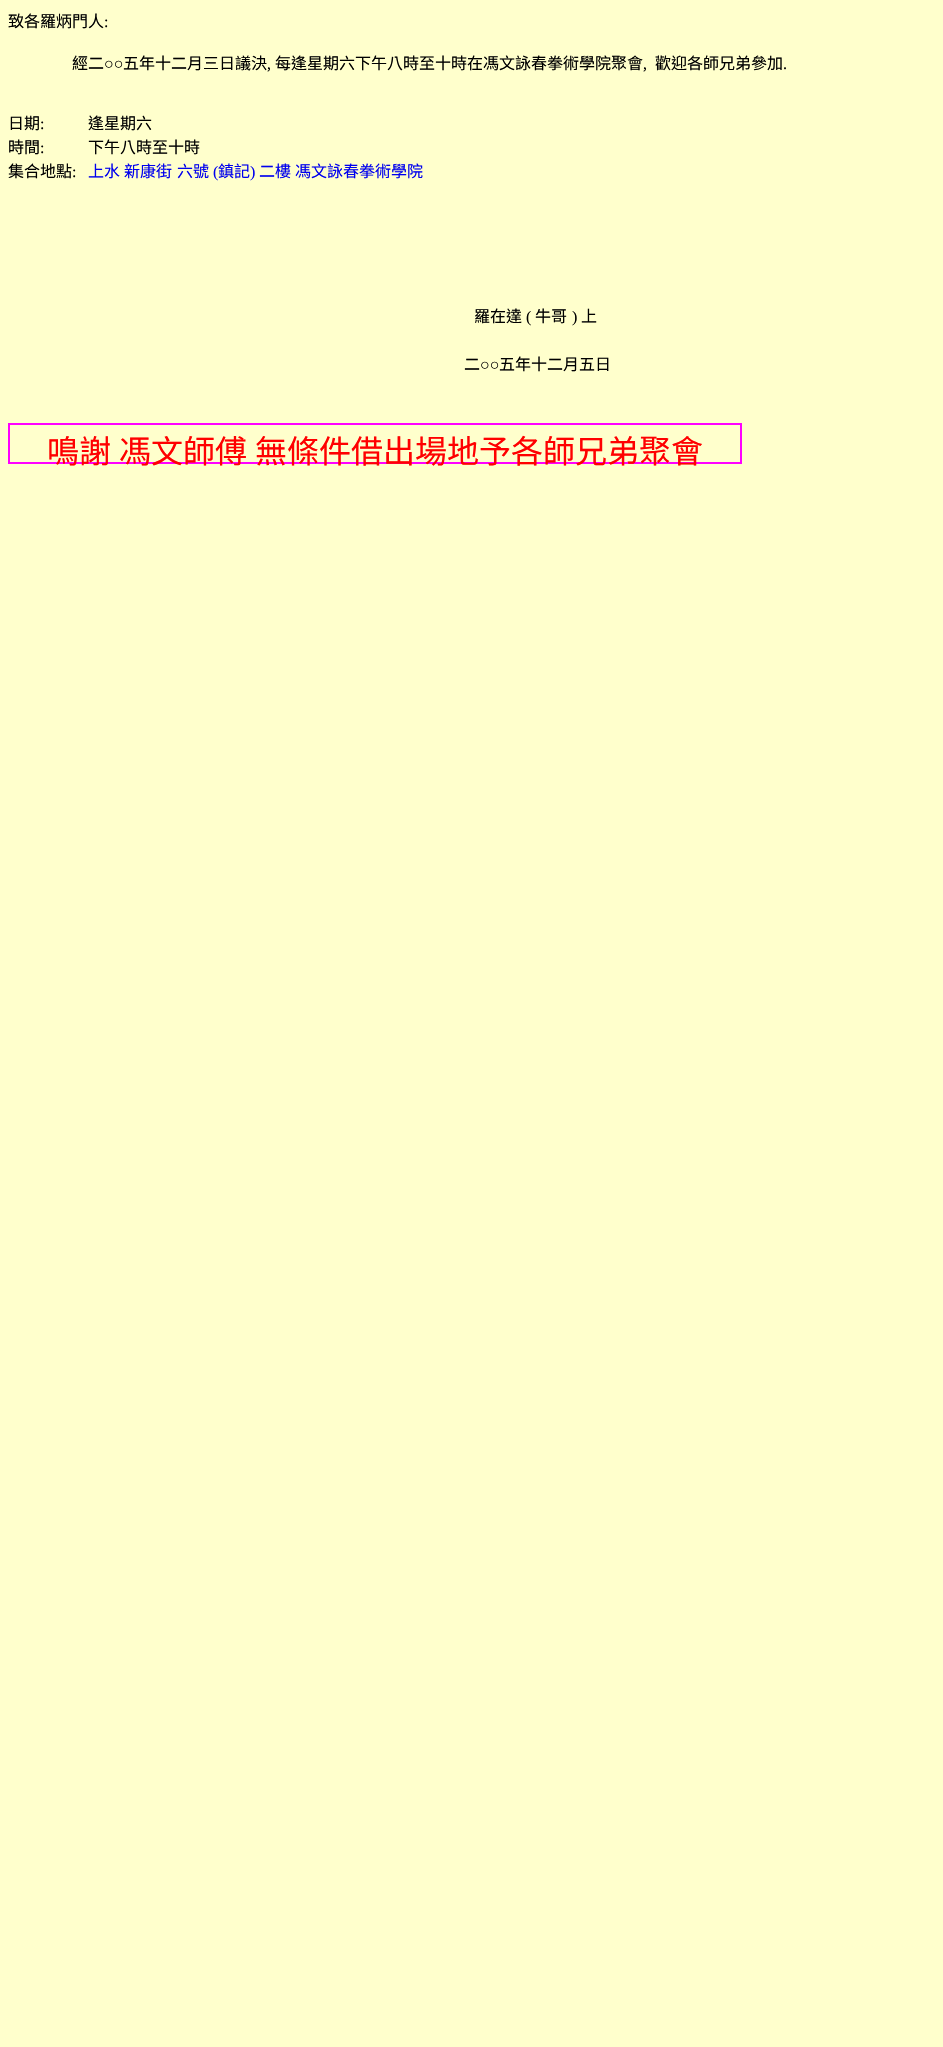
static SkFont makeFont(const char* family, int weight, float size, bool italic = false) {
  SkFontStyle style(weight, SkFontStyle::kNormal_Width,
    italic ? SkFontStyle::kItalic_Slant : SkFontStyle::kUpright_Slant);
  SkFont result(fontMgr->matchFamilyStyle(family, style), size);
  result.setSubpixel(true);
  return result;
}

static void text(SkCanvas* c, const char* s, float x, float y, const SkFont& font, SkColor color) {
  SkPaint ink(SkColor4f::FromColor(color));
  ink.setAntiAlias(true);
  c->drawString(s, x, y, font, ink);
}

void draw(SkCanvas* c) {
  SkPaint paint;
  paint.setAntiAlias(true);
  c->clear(0xffffffcc);
  SkFont face1 = makeFont("Noto Sans CJK HK", 400, 16);
  text(c, "致各羅炳門人", 8, 27, face1, 0xff000000);
  SkFont face2 = makeFont("Liberation Serif", 400, 16);
  text(c, ":", 104, 27, face2, 0xff000000);
  SkFont face3 = makeFont("Noto Sans CJK TC", 400, 16);
  text(c, "經", 72, 69, face3, 0xff000000);
  text(c, "二", 88, 69, face1, 0xff000000);
  text(c, "○○", 104, 69, face2, 0xff000000);
  text(c, "五年十二月三日", 123, 69, face1, 0xff000000);
  text(c, "議決", 235, 69, face3, 0xff000000);
  text(c, "每逢星期六下午八時至十時在", 275, 69, face3, 0xff000000);
  text(c, "馮文詠春拳術學院", 483, 69, face1, 0xff000000);
  text(c, "聚會", 611, 69, face3, 0xff000000);
  text(c, "歡迎各師兄弟參加", 655, 69, face1, 0xff000000);
  text(c, ",", 267, 69, face2, 0xff000000);
  text(c, ",", 643, 69, face2, 0xff000000);
  text(c, ".", 783, 69, face2, 0xff000000);
  text(c, "日期", 8, 129, face1, 0xff000000);
  text(c, ":", 40, 129, face2, 0xff000000);
  text(c, "逢星期六", 88, 129, face3, 0xff000000);
  text(c, "時間", 8, 153, face1, 0xff000000);
  text(c, ":", 40, 153, face2, 0xff000000);
  text(c, "下午八時至十時", 88, 153, face3, 0xff000000);
  text(c, "集合地點", 8, 177, face1, 0xff000000);
  text(c, ":", 72, 177, face2, 0xff000000);
  text(c, "上水", 88, 177, face1, 0xff0000ee);
  text(c, "新康街", 124, 177, face1, 0xff0000ee);
  text(c, "六號", 177, 177, face3, 0xff0000ee);
  text(c, "(", 213, 177, face2, 0xff0000ee);
  text(c, "鎮記", 218, 177, face1, 0xff0000ee);
  text(c, ")", 250, 177, face2, 0xff0000ee);
  text(c, "二樓", 259, 177, face1, 0xff0000ee);
  text(c, "馮文詠春拳術學院", 295, 177, face1, 0xff0000ee);
  text(c, "羅在達", 474, 322, face1, 0xff000000);
  text(c, "(", 526, 322, face2, 0xff000000);
  text(c, "牛哥", 535, 322, face1, 0xff000000);
  text(c, ")", 572, 322, face2, 0xff000000);
  text(c, "上", 581, 322, face1, 0xff000000);
  text(c, "二", 464, 370, face1, 0xff000000);
  text(c, "○○", 480, 370, face2, 0xff000000);
  text(c, "五年十二月", 499, 370, face1, 0xff000000);
  text(c, "五", 579, 370, face3, 0xff000000);
  text(c, "日", 595, 370, face1, 0xff000000);
  paint.setStyle(SkPaint::kStroke_Style);
  paint.setStrokeWidth(2);
  paint.setColor(0xffff00ff);
  c->drawRect(SkRect::MakeLTRB(9, 424, 741, 463), paint);
  SkFont face4 = makeFont("Noto Sans CJK TC", 400, 32);
  text(c, "鳴謝", 47, 463, face4, 0xffff0000);
  SkFont face5 = makeFont("Noto Sans CJK HK", 400, 32);
  text(c, "馮文", 119, 463, face5, 0xffff0000);
  text(c, "師傅", 183, 463, face4, 0xffff0000);
  text(c, "無條件借出場地予各師兄", 255, 463, face4, 0xffff0000);
  text(c, "弟", 607, 463, face5, 0xffff0000);
  text(c, "聚會", 639, 463, face4, 0xffff0000);
}
